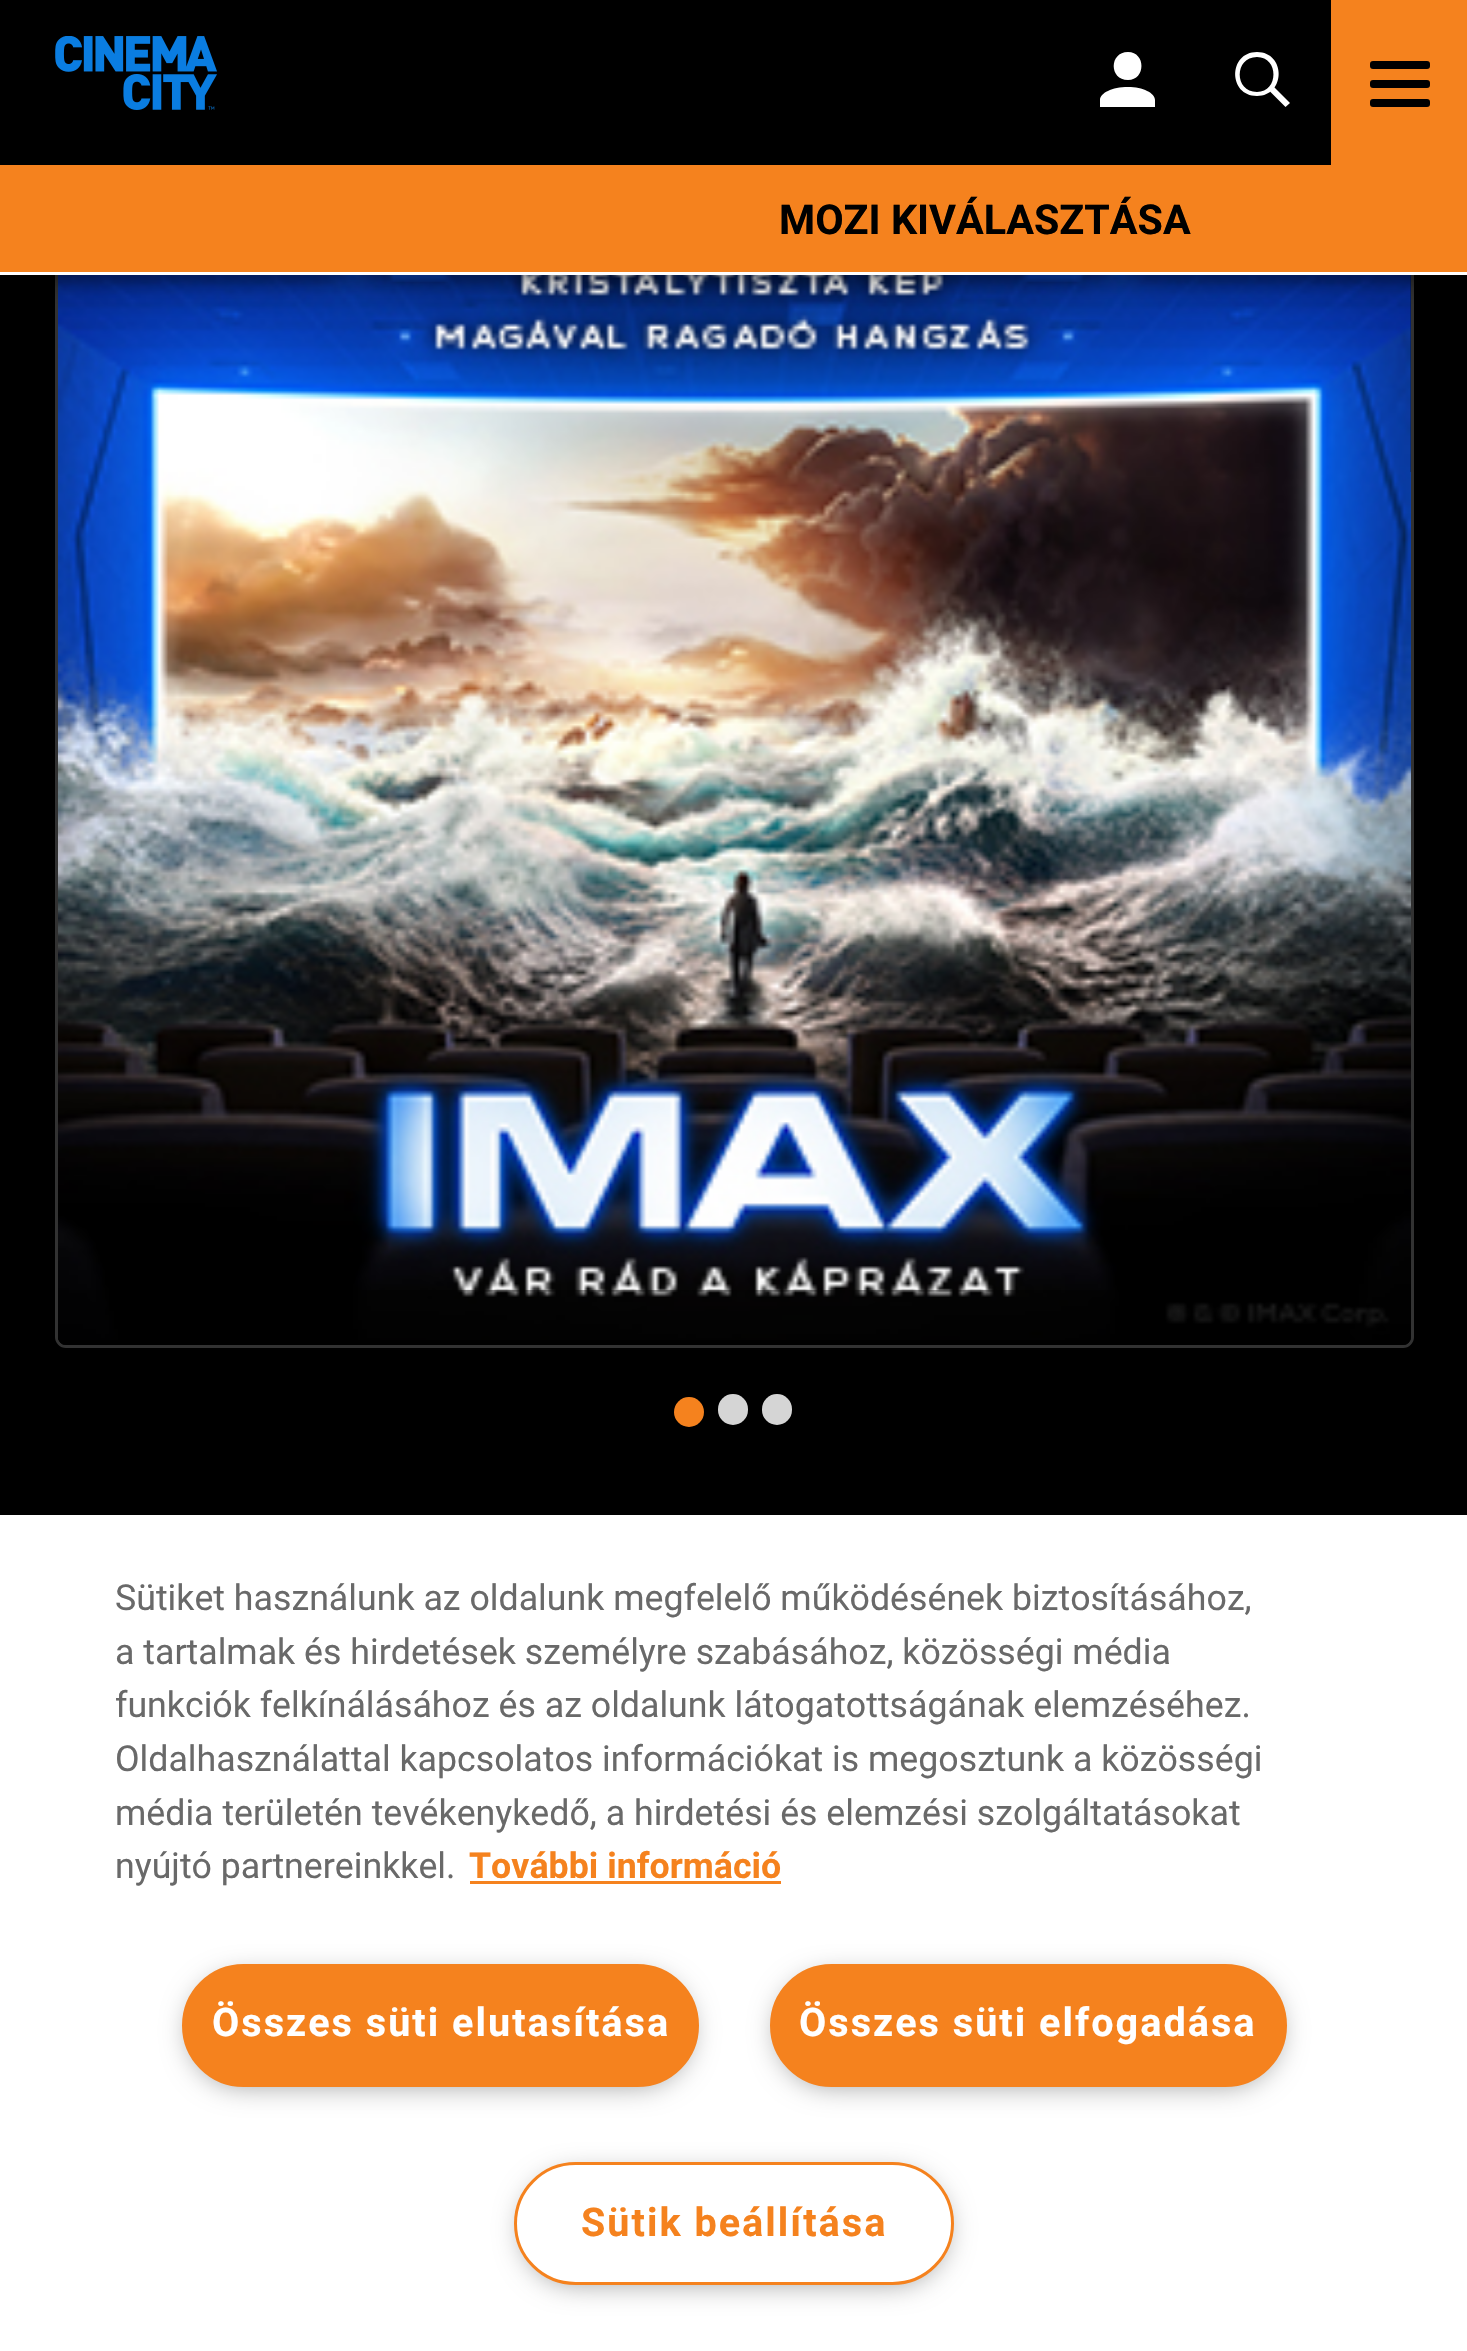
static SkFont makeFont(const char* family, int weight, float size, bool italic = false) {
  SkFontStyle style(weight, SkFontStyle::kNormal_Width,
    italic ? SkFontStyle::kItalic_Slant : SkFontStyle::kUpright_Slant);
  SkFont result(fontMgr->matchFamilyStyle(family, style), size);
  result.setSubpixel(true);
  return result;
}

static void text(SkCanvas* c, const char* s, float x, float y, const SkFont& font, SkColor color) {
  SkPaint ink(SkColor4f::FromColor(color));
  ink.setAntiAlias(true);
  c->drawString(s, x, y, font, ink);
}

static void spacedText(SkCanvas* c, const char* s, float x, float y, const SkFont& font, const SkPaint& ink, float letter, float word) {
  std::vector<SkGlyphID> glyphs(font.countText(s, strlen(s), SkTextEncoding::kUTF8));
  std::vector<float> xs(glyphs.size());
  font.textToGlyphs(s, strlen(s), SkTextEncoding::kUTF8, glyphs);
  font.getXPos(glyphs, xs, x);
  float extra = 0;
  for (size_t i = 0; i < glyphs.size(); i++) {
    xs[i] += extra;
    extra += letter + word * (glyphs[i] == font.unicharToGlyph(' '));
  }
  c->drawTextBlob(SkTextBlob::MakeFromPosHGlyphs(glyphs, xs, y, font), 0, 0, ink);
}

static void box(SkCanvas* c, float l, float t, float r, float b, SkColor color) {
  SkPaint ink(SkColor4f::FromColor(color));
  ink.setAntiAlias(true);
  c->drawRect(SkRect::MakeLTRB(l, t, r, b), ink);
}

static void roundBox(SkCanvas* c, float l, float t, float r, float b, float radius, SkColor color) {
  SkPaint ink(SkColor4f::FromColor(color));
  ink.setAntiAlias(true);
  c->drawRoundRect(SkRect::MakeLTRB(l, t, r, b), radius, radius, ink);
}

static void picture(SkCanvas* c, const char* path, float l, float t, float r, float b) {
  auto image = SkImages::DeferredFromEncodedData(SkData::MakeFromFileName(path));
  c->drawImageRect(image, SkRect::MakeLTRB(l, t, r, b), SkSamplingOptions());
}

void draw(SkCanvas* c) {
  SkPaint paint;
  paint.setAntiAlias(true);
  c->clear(0xff000000);
  paint.setStyle(SkPaint::kStroke_Style);
  paint.setStrokeWidth(3);
  paint.setColor(0xff323232);
  c->drawRoundRect(SkRect::MakeLTRB(56.5f, 216.5f, 1412.5f, 1346.5f), 9.5f, 9.5f, paint);
  roundBox(c, 58, 217, 1411, 1345, 8, 0xff000000);
  picture(c, "img_02.png", 58, 275, 1411, 1340);
  paint.setStyle(SkPaint::kFill_Style);
  paint.setColor(0x80000000);
  paint.setMaskFilter(SkMaskFilter::MakeBlur(kNormal_SkBlurStyle, 11));
  c->drawRect(SkRect::MakeLTRB(0, 6, 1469, 281), paint);
  paint.setMaskFilter(nullptr);
  box(c, 0, 165, 1467, 272, 0xfff5821e);
  box(c, 0, 272, 1467, 275, 0xffffffff);
  picture(c, "img_01.png", 55, 36, 217, 110);
  paint.setColor(0xffffffff);
  c->drawPath(SkPathBuilder().moveTo(1128, 52).cubicTo(1146, 52, 1146, 80, 1128, 80).cubicTo(1109, 80, 1109, 52, 1128, 52).close().moveTo(1128, 87).cubicTo(1143, 87, 1155, 93, 1155, 100).lineTo(1155, 107).lineTo(1100, 107).lineTo(1100, 100).cubicTo(1100, 93, 1112, 87, 1128, 87).close().detach(), paint);
  c->drawPath(SkPathBuilder(SkPathFillType::kEvenOdd).moveTo(1257, 52).cubicTo(1228, 52, 1228, 96, 1257, 96).cubicTo(1286, 96, 1286, 52, 1257, 52).close().moveTo(1257, 92).cubicTo(1234, 92, 1234, 57, 1257, 57).cubicTo(1279, 57, 1279, 92, 1257, 92).close().detach(), paint);
  c->drawPath(SkPathBuilder(SkPathFillType::kEvenOdd).moveTo(1274, 87).lineTo(1290, 103).lineTo(1285.5f, 107).lineTo(1270, 91.5f).close().detach(), paint);
  box(c, 1331, 0, 1467, 165, 0xfff5821e);
  roundBox(c, 1370, 61, 1430, 69, 3, 0xff000000);
  roundBox(c, 1370, 80, 1430, 88, 3, 0xff000000);
  roundBox(c, 1370, 99, 1430, 107, 3, 0xff000000);
  SkFont face1 = makeFont("Roboto", 700, 41.25f);
  text(c, "MOZI KIVÁLASZTÁSA", 779, 234, face1, 0xff000000);
  paint.setColor(0x66000000);
  c->drawPath(SkPathBuilder().moveTo(58, 1290).lineTo(1411, 1290).lineTo(1411, 1337).cubicTo(1411, 1341.5f, 1407.5f, 1345, 1403, 1345).lineTo(66, 1345).cubicTo(61.5f, 1345, 58, 1341.5f, 58, 1337).close().detach(), paint);
  paint.setColor(0xfff5821e);
  c->drawCircle(689, 1412, 15, paint);
  roundBox(c, 718, 1394, 748, 1425, 15, 0xffd5d5d5);
  roundBox(c, 762, 1394, 792, 1425, 15, 0xffd5d5d5);
  box(c, 0, 1515, 1467, 2351, 0xffffffff);
  SkFont face2 = makeFont("Roboto", 400, 35.75f);
  text(c, "Sütiket használunk az oldalunk megfelelő működésének biztosításához,", 115, 1610, face2, 0xff696969);
  text(c, "a tartalmak és hirdetések személyre szabásához, közösségi média", 115, 1664, face2, 0xff696969);
  text(c, "funkciók felkínálásához és az oldalunk látogatottságának elemzéséhez.", 115, 1717, face2, 0xff696969);
  text(c, "Oldalhasználattal kapcsolatos információkat is megosztunk a közösségi", 115, 1771, face2, 0xff696969);
  text(c, "média területén tevékenykedő, a hirdetési és elemzési szolgáltatásokat", 115, 1825, face2, 0xff696969);
  text(c, "nyújtó partnereinkkel.", 115, 1878, face2, 0xff696969);
  SkFont face3 = makeFont("Roboto", 700, 35.75f);
  text(c, "További információ", 469, 1878, face3, 0xfff5821e);
  box(c, 470, 1881, 781, 1884, 0xfff5821e);
  paint.setColor(0xff999999);
  paint.setMaskFilter(SkMaskFilter::MakeBlur(kNormal_SkBlurStyle, 14));
  c->drawRoundRect(SkRect::MakeLTRB(190, 1977, 690, 2085), 54, 54, paint);
  paint.setMaskFilter(nullptr);
  paint.setColor(0xfff5821e);
  c->drawRoundRect(SkRect::MakeLTRB(183.5f, 1965.5f, 697.5f, 2085.5f), 60, 60, paint);
  paint.setStyle(SkPaint::kStroke_Style);
  c->drawRoundRect(SkRect::MakeLTRB(183.5f, 1965.5f, 697.5f, 2085.5f), 60, 60, paint);
  SkFont face4 = makeFont("Roboto", 700, 39.6f);
  paint.setStyle(SkPaint::kFill_Style);
  paint.setColor(0xffffffff);
  spacedText(c, "Összes süti elutasítása", 212, 2036, face4, paint, 2, 0);
  paint.setColor(0xff999999);
  paint.setMaskFilter(SkMaskFilter::MakeBlur(kNormal_SkBlurStyle, 14));
  c->drawRoundRect(SkRect::MakeLTRB(778, 1977, 1279, 2085), 54, 54, paint);
  paint.setMaskFilter(nullptr);
  paint.setColor(0xfff5821e);
  c->drawRoundRect(SkRect::MakeLTRB(771.5f, 1965.5f, 1285.5f, 2085.5f), 60, 60, paint);
  paint.setStyle(SkPaint::kStroke_Style);
  c->drawRoundRect(SkRect::MakeLTRB(771.5f, 1965.5f, 1285.5f, 2085.5f), 60, 60, paint);
  paint.setStyle(SkPaint::kFill_Style);
  paint.setColor(0xffffffff);
  spacedText(c, "Összes süti elfogadása", 799, 2036, face4, paint, 2, 0);
  paint.setColor(0xff999999);
  paint.setMaskFilter(SkMaskFilter::MakeBlur(kNormal_SkBlurStyle, 14));
  c->drawRoundRect(SkRect::MakeLTRB(523, 2175, 946, 2283), 54, 54, paint);
  paint.setMaskFilter(nullptr);
  paint.setColor(0xffffffff);
  c->drawRoundRect(SkRect::MakeLTRB(515.5f, 2163.5f, 952.5f, 2283.5f), 60, 60, paint);
  paint.setStyle(SkPaint::kStroke_Style);
  paint.setColor(0xfff5821e);
  c->drawRoundRect(SkRect::MakeLTRB(515.5f, 2163.5f, 952.5f, 2283.5f), 60, 60, paint);
  paint.setStyle(SkPaint::kFill_Style);
  spacedText(c, "Sütik beállítása", 581, 2236, face4, paint, 2, 0);
}
